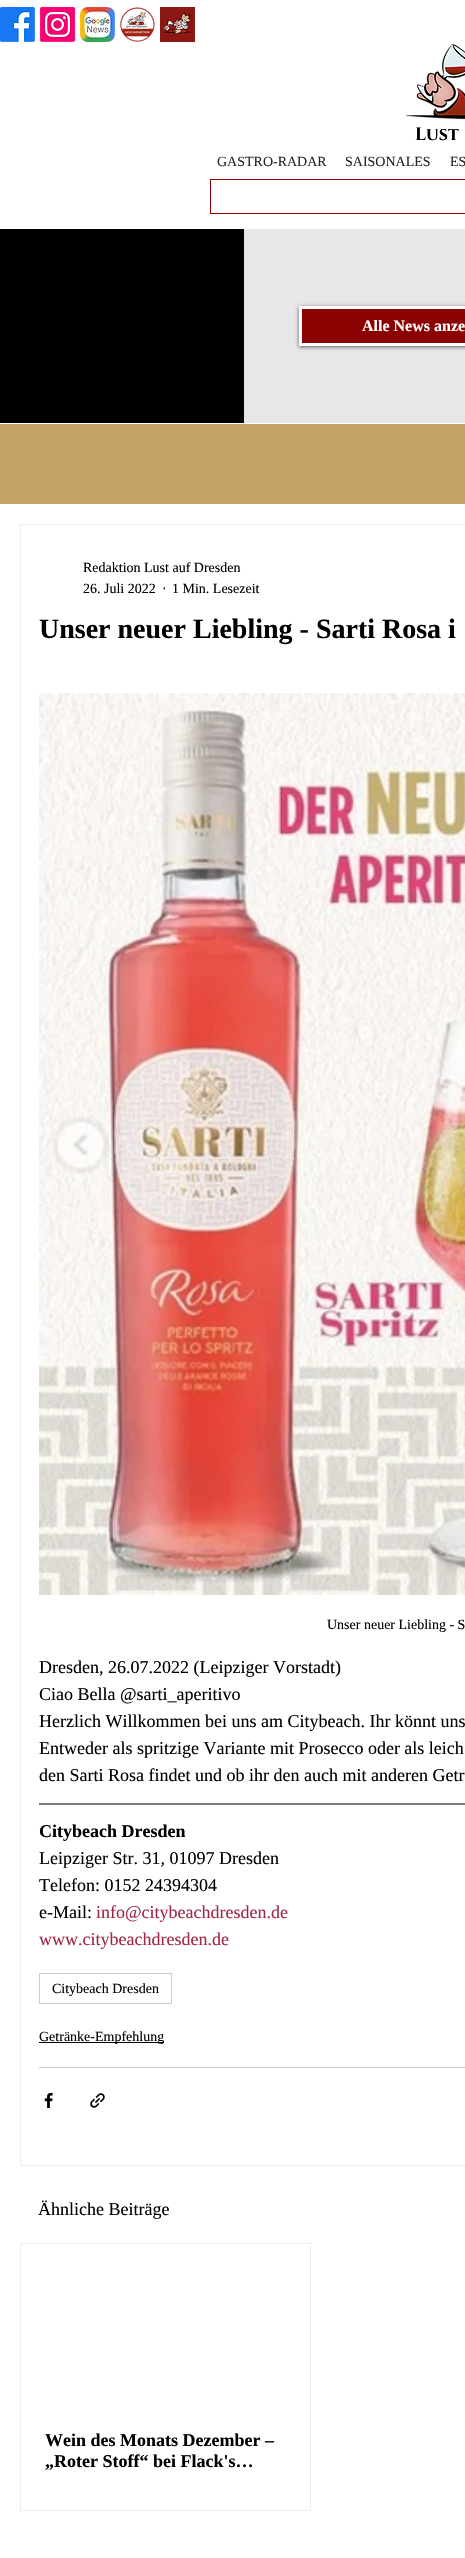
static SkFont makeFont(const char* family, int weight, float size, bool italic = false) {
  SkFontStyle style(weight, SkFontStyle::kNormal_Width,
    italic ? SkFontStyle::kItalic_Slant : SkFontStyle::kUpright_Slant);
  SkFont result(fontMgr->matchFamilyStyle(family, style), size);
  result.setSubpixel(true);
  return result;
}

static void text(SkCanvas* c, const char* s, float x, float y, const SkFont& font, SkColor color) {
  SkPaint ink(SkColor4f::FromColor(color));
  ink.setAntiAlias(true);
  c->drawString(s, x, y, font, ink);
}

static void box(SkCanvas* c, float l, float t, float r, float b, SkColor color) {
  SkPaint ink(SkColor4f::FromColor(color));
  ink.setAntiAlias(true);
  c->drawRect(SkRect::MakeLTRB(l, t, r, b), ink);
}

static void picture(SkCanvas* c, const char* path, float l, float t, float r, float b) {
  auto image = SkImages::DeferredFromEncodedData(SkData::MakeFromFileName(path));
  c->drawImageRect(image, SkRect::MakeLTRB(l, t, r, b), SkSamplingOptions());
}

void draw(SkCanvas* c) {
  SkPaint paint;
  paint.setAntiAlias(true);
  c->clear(0xffffffff);
  picture(c, "img_01.png", 0, 7, 35, 42);
  picture(c, "img_02.png", 40, 7, 75, 42);
  picture(c, "img_03.png", 80, 7, 115, 42);
  picture(c, "img_04.png", 120, 7, 155, 42);
  picture(c, "img_05.png", 160, 7, 195, 42);
  picture(c, "img_06.png", 406, 44, 465, 120);
  SkFont face1 = makeFont("Cinzel", 700, 18);
  text(c, "Lust", 415, 140, face1, 0xff000000);
  SkFont face2 = makeFont("Liberation Serif", 400, 14);
  text(c, "GASTRO-RADAR", 217, 166, face2, 0xff282626);
  text(c, "SAISONALES", 345, 166, face2, 0xff282626);
  text(c, "ES", 450, 166, face2, 0xff282626);
  paint.setStyle(SkPaint::kStroke_Style);
  paint.setStrokeWidth(1);
  paint.setColor(0xff8b0000);
  c->drawRect(SkRect::MakeLTRB(210.5f, 179.5f, 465.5f, 213.5f), paint);
  box(c, 0, 229, 244, 423, 0xff000000);
  box(c, 244, 229, 465, 423, 0xffe8e6e6);
  paint.setStyle(SkPaint::kFill_Style);
  paint.setColor(0x99000000);
  paint.setMaskFilter(SkMaskFilter::MakeBlur(kNormal_SkBlurStyle, 2));
  c->drawRect(SkRect::MakeLTRB(299, 307, 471, 347), paint);
  paint.setMaskFilter(nullptr);
  paint.setColor(0xff8b0000);
  c->drawRect(SkRect::MakeLTRB(300.5f, 307.5f, 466.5f, 344.5f), paint);
  paint.setStyle(SkPaint::kStroke_Style);
  paint.setStrokeWidth(3);
  paint.setColor(0xffffffff);
  c->drawRect(SkRect::MakeLTRB(300.5f, 307.5f, 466.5f, 344.5f), paint);
  SkFont face3 = makeFont("Liberation Serif", 700, 16);
  text(c, "Alle News anze", 362, 331, face3, 0xffffffff);
  box(c, 0, 424, 465, 504, 0xffc4a468);
  paint.setStrokeWidth(1);
  paint.setColor(0xffeeecec);
  c->drawRect(SkRect::MakeLTRB(20.5f, 524.5f, 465.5f, 2165.5f), paint);
  text(c, "Redaktion Lust auf Dresden", 83, 572, face2, 0xff000000);
  text(c, "26. Juli 2022", 83, 593, face2, 0xff000000);
  text(c, "·", 162, 593, face2, 0xff000000);
  text(c, "1 Min. Lesezeit", 172, 593, face2, 0xff000000);
  SkFont face4 = makeFont("Liberation Serif", 700, 28);
  text(c, "Unser neuer Liebling - Sarti Rosa i", 39, 638, face4, 0xff000000);
  picture(c, "img_07.png", 39, 693, 465, 1595);
  text(c, "Unser neuer Liebling - S", 327, 1629, face2, 0xff000000);
  SkFont face5 = makeFont("Liberation Serif", 400, 18);
  text(c, "Dresden, 26.07.2022 (Leipziger Vorstadt)", 39, 1673, face5, 0xff000000);
  text(c, "Ciao Bella @sarti_aperitivo", 39, 1700, face5, 0xff000000);
  text(c, "Herzlich Willkommen bei uns am Citybeach. Ihr könnt uns", 39, 1727, face5, 0xff000000);
  text(c, "Entweder als spritzige Variante mit Prosecco oder als leich", 39, 1754, face5, 0xff000000);
  text(c, "den Sarti Rosa findet und ob ihr den auch mit anderen Getr", 39, 1781, face5, 0xff000000);
  paint.setColor(0xff000000);
  c->drawPath(SkPathBuilder().moveTo(39, 1804).lineTo(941, 1804).detach(), paint);
  SkFont face6 = makeFont("Liberation Serif", 700, 18);
  text(c, "Citybeach Dresden", 39, 1837, face6, 0xff000000);
  text(c, "Leipziger Str. 31, 01097 Dresden", 39, 1864, face5, 0xff000000);
  text(c, "Telefon: 0152 24394304", 39, 1891, face5, 0xff000000);
  text(c, "e-Mail:", 39, 1918, face5, 0xff000000);
  text(c, "info@citybeachdresden.de", 96, 1918, face5, 0xff9f2747);
  text(c, "www.citybeachdresden.de", 39, 1945, face5, 0xff9f2747);
  paint.setColor(0xffcccccc);
  c->drawRect(SkRect::MakeLTRB(39.5f, 1973.5f, 171.5f, 2003.5f), paint);
  text(c, "Citybeach Dresden", 52, 1993, face2, 0xff000000);
  box(c, 39, 2042, 164, 2043, 0xff000000);
  text(c, "Getränke-Empfehlung", 39, 2041, face2, 0xff000000);
  box(c, 39, 2067, 465, 2068, 0xffcccccc);
  picture(c, "img_08.png", 44, 2093, 53, 2108);
  picture(c, "img_09.png", 90, 2093, 105, 2108);
  text(c, "Ähnliche Beiträge", 38, 2215, face5, 0xff000000);
  paint.setColor(0xffeeecec);
  c->drawRect(SkRect::MakeLTRB(20.5f, 2243.5f, 310.5f, 2510.5f), paint);
  text(c, "Wein des Monats Dezember –", 45, 2446, face6, 0xff000000);
  text(c, "„Roter Stoff“ bei Flack's…", 45, 2467, face6, 0xff000000);
}
